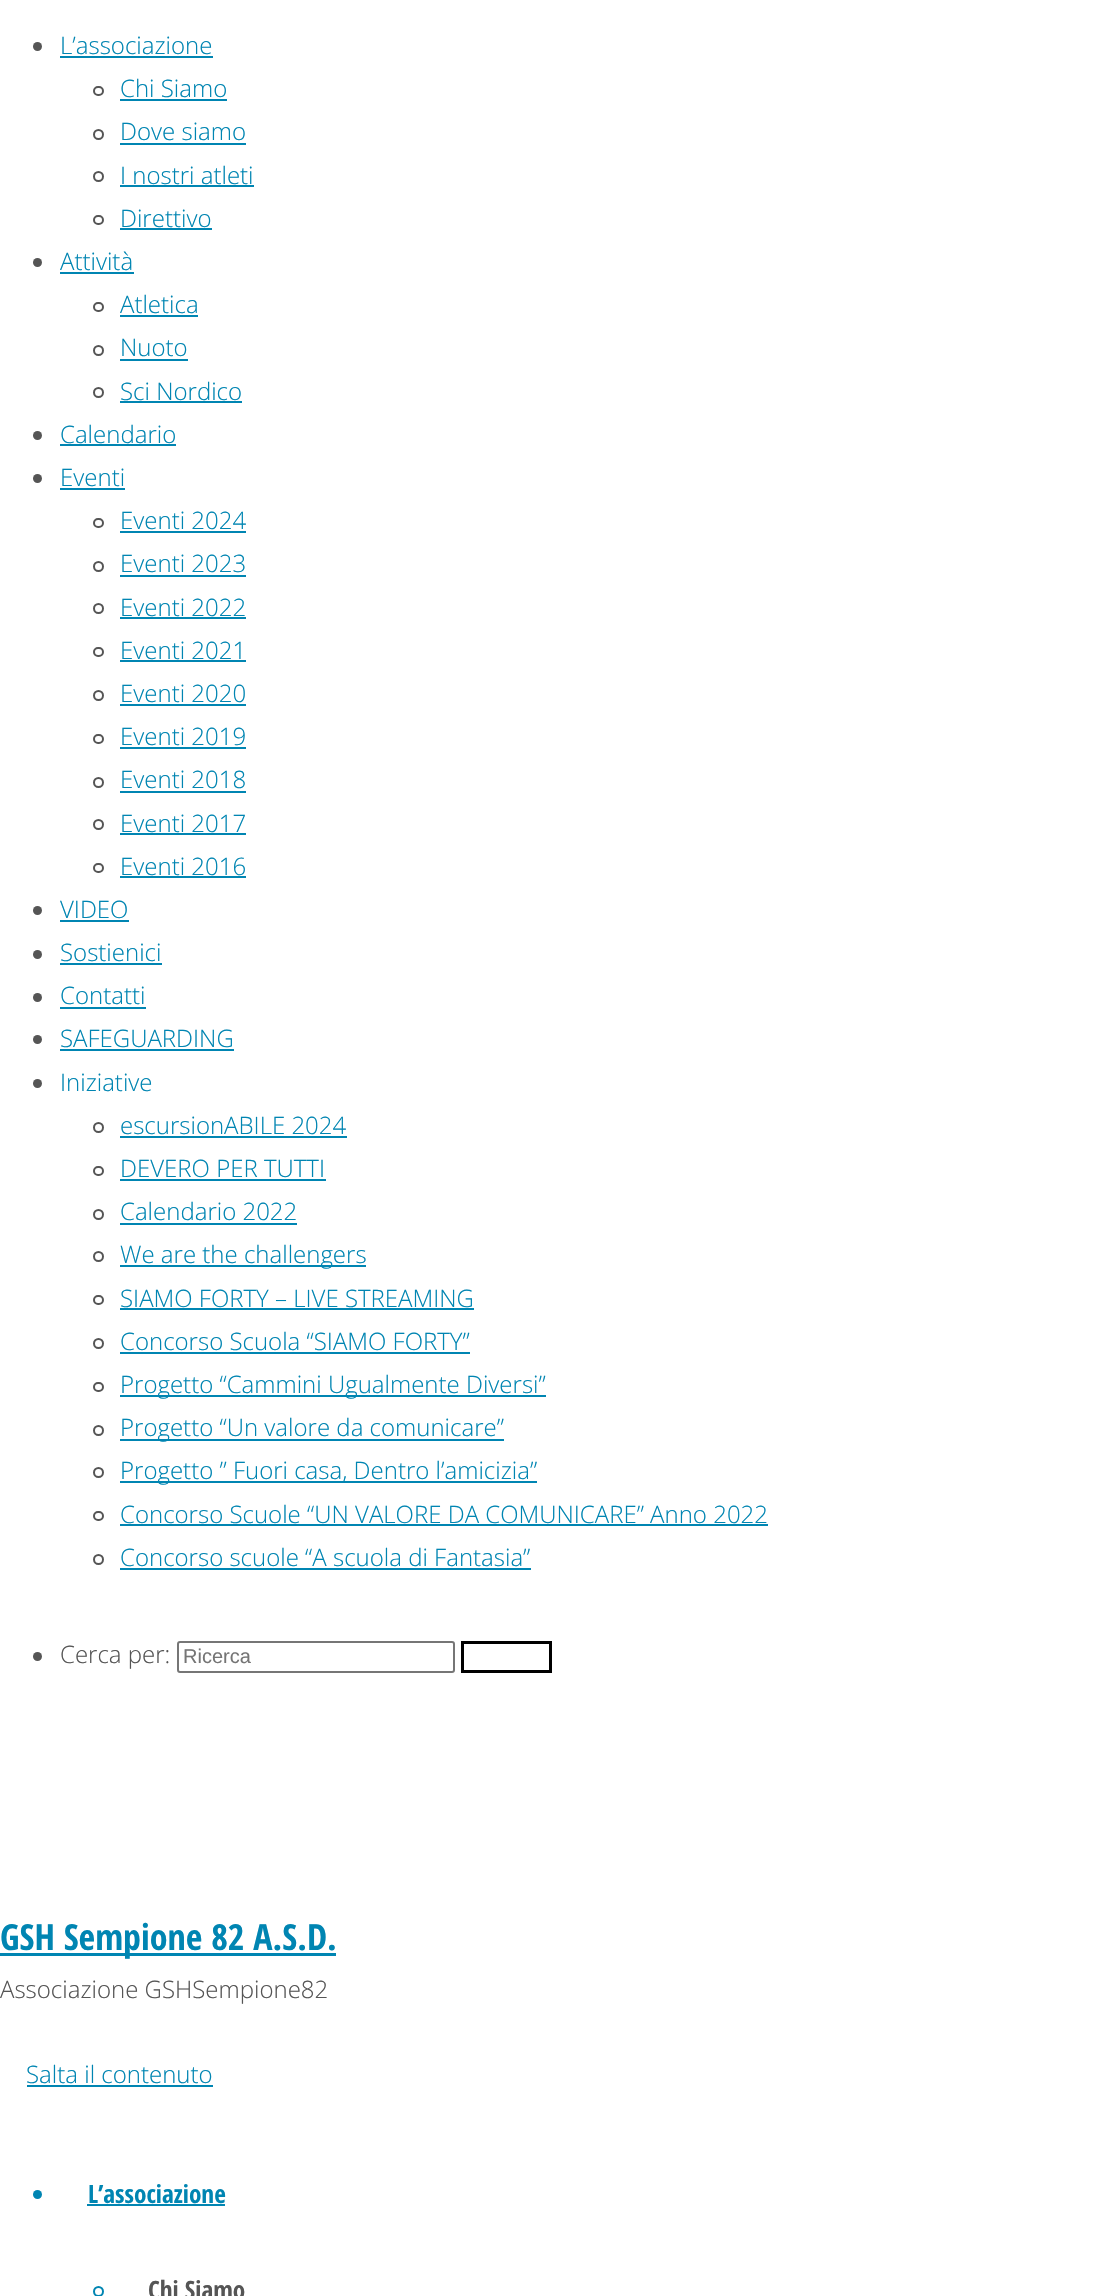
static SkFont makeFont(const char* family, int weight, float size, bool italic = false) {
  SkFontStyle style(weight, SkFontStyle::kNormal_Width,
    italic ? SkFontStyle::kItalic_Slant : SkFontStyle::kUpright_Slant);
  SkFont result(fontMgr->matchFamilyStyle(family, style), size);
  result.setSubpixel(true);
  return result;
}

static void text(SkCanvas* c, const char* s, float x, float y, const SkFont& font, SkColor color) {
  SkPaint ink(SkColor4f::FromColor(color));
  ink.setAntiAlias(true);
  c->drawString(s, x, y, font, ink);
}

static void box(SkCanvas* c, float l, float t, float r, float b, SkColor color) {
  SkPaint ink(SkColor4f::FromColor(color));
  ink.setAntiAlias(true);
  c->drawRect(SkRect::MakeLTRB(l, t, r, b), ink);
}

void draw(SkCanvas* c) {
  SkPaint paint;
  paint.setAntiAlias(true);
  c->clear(0xffffffff);
  paint.setColor(0xff555555);
  c->drawCircle(37.5f, 46.5f, 4.5f, paint);
  SkFont face1 = makeFont("Open Sans", 300, 24);
  text(c, "L’associazione", 60, 54, face1, 0xff0085b2);
  box(c, 60, 56, 213, 58, 0xff0085b2);
  paint.setStyle(SkPaint::kStroke_Style);
  paint.setStrokeWidth(2);
  c->drawRoundRect(SkRect::MakeLTRB(94, 87, 103, 95), 4, 4, paint);
  text(c, "Chi Siamo", 120, 97, face1, 0xff0085b2);
  box(c, 120, 99, 227, 101, 0xff0085b2);
  c->drawCircle(98.5f, 134.5f, 4.5f, paint);
  text(c, "Dove siamo", 120, 140, face1, 0xff0085b2);
  box(c, 120, 143, 246, 145, 0xff0085b2);
  c->drawCircle(98.5f, 176.5f, 4.5f, paint);
  text(c, "I nostri atleti", 120, 184, face1, 0xff0085b2);
  box(c, 120, 185, 254, 187, 0xff0085b2);
  c->drawRoundRect(SkRect::MakeLTRB(94, 216, 103, 224), 4, 4, paint);
  text(c, "Direttivo", 120, 227, face1, 0xff0085b2);
  box(c, 120, 228, 212, 230, 0xff0085b2);
  paint.setStyle(SkPaint::kFill_Style);
  c->drawCircle(37.5f, 262.5f, 4.5f, paint);
  text(c, "Attività", 60, 270, face1, 0xff0085b2);
  box(c, 60, 272, 134, 274, 0xff0085b2);
  paint.setStyle(SkPaint::kStroke_Style);
  c->drawRoundRect(SkRect::MakeLTRB(94, 303, 103, 311), 4, 4, paint);
  text(c, "Atletica", 120, 313, face1, 0xff0085b2);
  box(c, 120, 315, 198, 317, 0xff0085b2);
  c->drawCircle(98.5f, 350.5f, 4.5f, paint);
  text(c, "Nuoto", 120, 356, face1, 0xff0085b2);
  box(c, 120, 359, 188, 361, 0xff0085b2);
  c->drawCircle(98.5f, 392.5f, 4.5f, paint);
  text(c, "Sci Nordico", 120, 400, face1, 0xff0085b2);
  box(c, 120, 401, 242, 403, 0xff0085b2);
  paint.setStyle(SkPaint::kFill_Style);
  c->drawCircle(37.5f, 435.5f, 4.5f, paint);
  text(c, "Calendario", 60, 443, face1, 0xff0085b2);
  box(c, 60, 444, 176, 446, 0xff0085b2);
  c->drawCircle(37.5f, 478.5f, 4.5f, paint);
  text(c, "Eventi", 60, 486, face1, 0xff0085b2);
  box(c, 60, 488, 125, 490, 0xff0085b2);
  paint.setStyle(SkPaint::kStroke_Style);
  c->drawRoundRect(SkRect::MakeLTRB(94, 519, 103, 527), 4, 4, paint);
  text(c, "Eventi 2024", 120, 529, face1, 0xff0085b2);
  box(c, 120, 531, 246, 533, 0xff0085b2);
  c->drawCircle(98.5f, 566.5f, 4.5f, paint);
  text(c, "Eventi 2023", 120, 572, face1, 0xff0085b2);
  box(c, 120, 575, 246, 577, 0xff0085b2);
  c->drawCircle(98.5f, 608.5f, 4.5f, paint);
  text(c, "Eventi 2022", 120, 616, face1, 0xff0085b2);
  box(c, 120, 617, 246, 619, 0xff0085b2);
  c->drawRoundRect(SkRect::MakeLTRB(94, 648, 103, 656), 4, 4, paint);
  text(c, "Eventi 2021", 120, 659, face1, 0xff0085b2);
  box(c, 120, 660, 246, 662, 0xff0085b2);
  c->drawCircle(98.5f, 695.5f, 4.5f, paint);
  text(c, "Eventi 2020", 120, 702, face1, 0xff0085b2);
  box(c, 120, 704, 246, 706, 0xff0085b2);
  c->drawRoundRect(SkRect::MakeLTRB(94, 735, 103, 743), 4, 4, paint);
  text(c, "Eventi 2019", 120, 745, face1, 0xff0085b2);
  box(c, 120, 747, 246, 749, 0xff0085b2);
  c->drawCircle(98.5f, 782.5f, 4.5f, paint);
  text(c, "Eventi 2018", 120, 788, face1, 0xff0085b2);
  box(c, 120, 791, 246, 793, 0xff0085b2);
  c->drawCircle(98.5f, 824.5f, 4.5f, paint);
  text(c, "Eventi 2017", 120, 832, face1, 0xff0085b2);
  box(c, 120, 833, 246, 835, 0xff0085b2);
  c->drawRoundRect(SkRect::MakeLTRB(94, 864, 103, 872), 4, 4, paint);
  text(c, "Eventi 2016", 120, 875, face1, 0xff0085b2);
  box(c, 120, 876, 246, 878, 0xff0085b2);
  paint.setStyle(SkPaint::kFill_Style);
  c->drawCircle(37.5f, 910.5f, 4.5f, paint);
  text(c, "VIDEO", 60, 918, face1, 0xff0085b2);
  box(c, 60, 920, 129, 922, 0xff0085b2);
  c->drawCircle(37.5f, 954.5f, 4.5f, paint);
  text(c, "Sostienici", 60, 961, face1, 0xff0085b2);
  box(c, 60, 963, 162, 965, 0xff0085b2);
  c->drawCircle(37.5f, 997.5f, 4.5f, paint);
  text(c, "Contatti", 60, 1004, face1, 0xff0085b2);
  box(c, 60, 1007, 146, 1009, 0xff0085b2);
  c->drawCircle(37.5f, 1039.5f, 4.5f, paint);
  text(c, "SAFEGUARDING", 60, 1047, face1, 0xff0085b2);
  box(c, 60, 1049, 234, 1051, 0xff0085b2);
  c->drawCircle(37.5f, 1083.5f, 4.5f, paint);
  text(c, "Iniziative", 60, 1091, face1, 0xff0085b2);
  paint.setStyle(SkPaint::kStroke_Style);
  c->drawCircle(98.5f, 1127.5f, 4.5f, paint);
  text(c, "escursionABILE 2024", 120, 1134, face1, 0xff0085b2);
  box(c, 120, 1136, 347, 1138, 0xff0085b2);
  c->drawRoundRect(SkRect::MakeLTRB(94, 1167, 103, 1175), 4, 4, paint);
  text(c, "DEVERO PER TUTTI", 120, 1177, face1, 0xff0085b2);
  box(c, 120, 1179, 326, 1181, 0xff0085b2);
  c->drawCircle(98.5f, 1214.5f, 4.5f, paint);
  text(c, "Calendario 2022", 120, 1220, face1, 0xff0085b2);
  box(c, 120, 1223, 297, 1225, 0xff0085b2);
  c->drawCircle(98.5f, 1256.5f, 4.5f, paint);
  box(c, 120, 1265, 366, 1267, 0xff0085b2);
  text(c, "We are the challengers", 120, 1263, face1, 0xff0085b2);
  c->drawRoundRect(SkRect::MakeLTRB(94, 1296, 103, 1304), 4, 4, paint);
  text(c, "SIAMO FORTY – LIVE STREAMING", 120, 1307, face1, 0xff0085b2);
  box(c, 120, 1308, 474, 1310, 0xff0085b2);
  c->drawCircle(98.5f, 1343.5f, 4.5f, paint);
  text(c, "Concorso Scuola “SIAMO FORTY”", 120, 1350, face1, 0xff0085b2);
  box(c, 120, 1352, 470, 1354, 0xff0085b2);
  c->drawRoundRect(SkRect::MakeLTRB(94, 1383, 103, 1391), 4, 4, paint);
  box(c, 120, 1395, 546, 1397, 0xff0085b2);
  text(c, "Progetto “Cammini Ugualmente Diversi”", 120, 1393, face1, 0xff0085b2);
  c->drawCircle(98.5f, 1430.5f, 4.5f, paint);
  box(c, 120, 1439, 504, 1441, 0xff0085b2);
  text(c, "Progetto “Un valore da comunicare”", 120, 1436, face1, 0xff0085b2);
  c->drawCircle(98.5f, 1472.5f, 4.5f, paint);
  box(c, 120, 1481, 537, 1483, 0xff0085b2);
  text(c, "Progetto ” Fuori casa, Dentro l’amicizia”", 120, 1479, face1, 0xff0085b2);
  c->drawRoundRect(SkRect::MakeLTRB(94, 1512, 103, 1520), 4, 4, paint);
  text(c, "Concorso Scuole “UN VALORE DA COMUNICARE” Anno 2022", 120, 1523, face1, 0xff0085b2);
  box(c, 120, 1524, 768, 1526, 0xff0085b2);
  c->drawCircle(98.5f, 1559.5f, 4.5f, paint);
  text(c, "Concorso scuole “A scuola di Fantasia”", 120, 1566, face1, 0xff0085b2);
  box(c, 120, 1568, 531, 1570, 0xff0085b2);
  paint.setStyle(SkPaint::kFill_Style);
  c->drawCircle(37.5f, 1656.5f, 4.5f, paint);
  text(c, "Cerca per:", 60, 1663, face1, 0xff555555);
  paint.setStyle(SkPaint::kStroke_Style);
  paint.setColor(0xff767676);
  c->drawRoundRect(SkRect::MakeLTRB(178, 1642, 454, 1672), 2, 2, paint);
  SkFont face2 = makeFont("Liberation Sans", 400, 20);
  text(c, "Ricerca", 183, 1663, face2, 0xff757575);
  paint.setStrokeWidth(3);
  paint.setColor(0xff000000);
  c->drawRect(SkRect::MakeLTRB(462.5f, 1642.5f, 550.5f, 1671.5f), paint);
  box(c, 0, 1953, 336, 1956, 0xff0085b2);
  SkFont face3 = makeFont("Open Sans Condensed", 700, 36);
  text(c, "GSH Sempione 82 A.S.D.", 0, 1950, face3, 0xff0085b2);
  text(c, "Associazione GSHSempione82", 0, 1998, face1, 0xff555555);
  text(c, "Salta il contenuto", 26, 2083, face1, 0xff0085b2);
  box(c, 27, 2085, 213, 2087, 0xff0085b2);
  paint.setStyle(SkPaint::kFill_Style);
  paint.setColor(0xff0085b2);
  c->drawCircle(37.5f, 2194.5f, 4.5f, paint);
  SkFont face4 = makeFont("Open Sans Condensed", 700, 25.25f);
  text(c, "L’associazione", 88, 2203, face4, 0xff0085b2);
  box(c, 87, 2204, 225, 2206, 0xff0085b2);
  paint.setStyle(SkPaint::kStroke_Style);
  paint.setStrokeWidth(2);
  c->drawCircle(98.5f, 2291.5f, 4.5f, paint);
  text(c, "Chi Siamo", 148, 2299, face4, 0xff555555);
}
